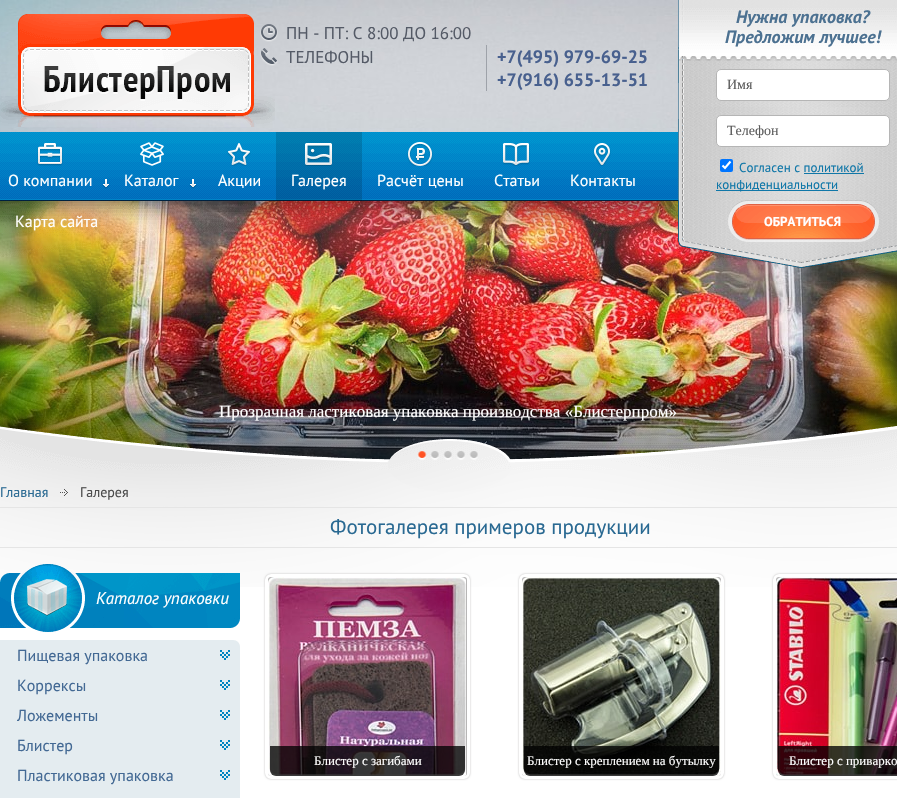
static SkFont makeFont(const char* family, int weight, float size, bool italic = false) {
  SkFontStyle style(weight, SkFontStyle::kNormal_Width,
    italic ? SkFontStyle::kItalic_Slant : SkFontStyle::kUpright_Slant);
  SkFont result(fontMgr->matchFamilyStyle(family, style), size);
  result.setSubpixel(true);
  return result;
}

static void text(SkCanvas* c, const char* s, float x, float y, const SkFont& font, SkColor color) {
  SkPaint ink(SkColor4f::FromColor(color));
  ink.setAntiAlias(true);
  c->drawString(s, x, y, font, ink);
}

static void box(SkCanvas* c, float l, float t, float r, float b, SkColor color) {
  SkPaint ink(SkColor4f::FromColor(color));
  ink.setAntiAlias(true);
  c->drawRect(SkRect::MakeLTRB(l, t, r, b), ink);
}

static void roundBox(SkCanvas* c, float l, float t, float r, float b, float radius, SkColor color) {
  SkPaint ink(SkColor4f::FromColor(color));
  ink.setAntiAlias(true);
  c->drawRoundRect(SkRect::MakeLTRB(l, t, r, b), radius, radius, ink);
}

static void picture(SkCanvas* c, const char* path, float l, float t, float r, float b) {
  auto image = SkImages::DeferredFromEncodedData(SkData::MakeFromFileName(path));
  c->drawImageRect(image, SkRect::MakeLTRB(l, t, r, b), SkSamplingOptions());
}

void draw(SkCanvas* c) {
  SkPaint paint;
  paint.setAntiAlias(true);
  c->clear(0xffffffff);
  picture(c, "img_01.png", 0, 0, 678, 132);
  picture(c, "img_02.png", 0, 14, 275, 127);
  picture(c, "img_03.png", 260, 24, 278, 42);
  SkFont face1 = makeFont("PT Sans", 400, 17);
  text(c, "ПН - ПТ: С 8:00 ДО 16:00", 286, 39, face1, 0xff545a66);
  picture(c, "img_04.png", 260, 48, 278, 66);
  text(c, "ТЕЛЕФОНЫ", 286, 63, face1, 0xff545a66);
  box(c, 486, 45, 487, 91, 0xff9ea2a9);
  SkFont face2 = makeFont("PT Sans", 700, 18);
  text(c, "+7(495) 979-69-25", 497, 63, face2, 0xff48608e);
  text(c, "+7(916) 655-13-51", 497, 86, face2, 0xff48608e);
  picture(c, "img_08.png", 0, 132, 679, 201);
  picture(c, "img_18.png", 0, 201, 897, 460);
  picture(c, "img_19.png", 0, 201, 897, 470);
  picture(c, "img_05.png", 678, 0, 897, 268);
  picture(c, "img_06.png", 679, 0, 897, 61);
  SkFont face3 = makeFont("PT Sans", 700, 18, true);
  text(c, "Нужна упаковка?", 736, 23, face3, 0xff4c7191);
  text(c, "Предложим лучшее!", 725, 43, face3, 0xff4c7191);
  paint.setColor(0xffffffff);
  c->drawRoundRect(SkRect::MakeLTRB(716.5f, 69.5f, 889.5f, 100.5f), 4.5f, 4.5f, paint);
  paint.setStyle(SkPaint::kStroke_Style);
  paint.setStrokeWidth(1);
  paint.setColor(0xffb5b5b5);
  c->drawRoundRect(SkRect::MakeLTRB(716.5f, 69.5f, 889.5f, 100.5f), 4.5f, 4.5f, paint);
  SkFont face4 = makeFont("Liberation Serif", 400, 14);
  text(c, "Имя", 727, 89, face4, 0xff5c5c5c);
  paint.setStyle(SkPaint::kFill_Style);
  paint.setColor(0xffffffff);
  c->drawRoundRect(SkRect::MakeLTRB(716.5f, 115.5f, 889.5f, 146.5f), 4.5f, 4.5f, paint);
  paint.setStyle(SkPaint::kStroke_Style);
  paint.setColor(0xffb5b5b5);
  c->drawRoundRect(SkRect::MakeLTRB(716.5f, 115.5f, 889.5f, 146.5f), 4.5f, 4.5f, paint);
  text(c, "Телефон", 727, 135, face4, 0xff5c5c5c);
  roundBox(c, 720, 159, 733, 172, 2, 0xff0075ff);
  paint.setStrokeWidth(2.1f);
  paint.setColor(0xffffffff);
  c->drawPath(SkPathBuilder().moveTo(722.5f, 165.5f).lineTo(725, 168).lineTo(730.5f, 161.5f).detach(), paint);
  SkFont face5 = makeFont("PT Sans", 400, 13);
  text(c, "Согласен с политикой", 739, 172, face5, 0xff1077a8);
  box(c, 716, 190, 838, 191, 0xff1077a8);
  text(c, "конфиденциальности", 716, 189, face5, 0xff1077a8);
  box(c, 804, 173, 864, 174, 0xff1077a8);
  picture(c, "img_07.png", 728, 200, 879, 242);
  SkFont face6 = makeFont("PT Sans", 700, 13);
  text(c, "ОБРАТИТЬСЯ", 764, 226, face6, 0xffffffff);
  picture(c, "img_09.png", 37, 143, 63, 166);
  picture(c, "img_10.png", 102, 179, 110, 189);
  SkFont face7 = makeFont("PT Sans", 400, 16);
  text(c, "О компании", 8, 186, face7, 0xffffffff);
  picture(c, "img_11.png", 140, 142, 164, 166);
  picture(c, "img_12.png", 189, 179, 197, 189);
  text(c, "Каталог", 124, 186, face7, 0xffffffff);
  picture(c, "img_13.png", 227, 143, 251, 166);
  text(c, "Акции", 218, 186, face7, 0xffffffff);
  box(c, 276, 132, 362, 201, 0x26000000);
  picture(c, "img_14.png", 305, 143, 332, 166);
  text(c, "Галерея", 291, 186, face7, 0xffffffff);
  picture(c, "img_15.png", 407, 142, 433, 166);
  text(c, "Расчёт цены", 377, 186, face7, 0xffffffff);
  picture(c, "img_16.png", 503, 143, 530, 166);
  text(c, "Статьи", 494, 186, face7, 0xffffffff);
  picture(c, "img_17.png", 593, 143, 611, 166);
  text(c, "Контакты", 570, 186, face7, 0xffffffff);
  text(c, "Карта сайта", 15, 227, face7, 0xffffffff);
  SkFont face8 = makeFont("Liberation Serif", 400, 17);
  text(c, "Прозрачная ластиковая упаковка производства «Блистерпром»", 219, 417, face8, 0xffffffff);
  picture(c, "img_20.png", 417, 451, 427, 460);
  picture(c, "img_21.png", 430, 451, 439, 460);
  picture(c, "img_22.png", 443, 451, 452, 460);
  picture(c, "img_23.png", 456, 451, 465, 460);
  picture(c, "img_24.png", 469, 451, 478, 460);
  picture(c, "img_25.png", 0, 470, 897, 587);
  box(c, 0, 507, 897, 508, 0xffe5e5e5);
  picture(c, "img_26.png", 60, 489, 68, 496);
  SkFont face9 = makeFont("PT Sans", 400, 14);
  text(c, "Главная", 0, 497, face9, 0xff296992);
  text(c, "Галерея", 80, 497, face9, 0xff4a4a4a);
  box(c, 0, 547, 897, 548, 0xffe5e5e5);
  SkFont face10 = makeFont("PT Sans", 400, 21);
  text(c, "Фотогалерея примеров продукции", 330, 534, face10, 0xff296992);
  paint.setStyle(SkPaint::kFill_Style);
  paint.setColor(0xffb7b6b6);
  paint.setMaskFilter(SkMaskFilter::MakeBlur(kNormal_SkBlurStyle, 1));
  c->drawRoundRect(SkRect::MakeLTRB(265, 574, 470, 779), 6, 6, paint);
  paint.setMaskFilter(nullptr);
  paint.setStyle(SkPaint::kStroke_Style);
  paint.setStrokeWidth(3);
  paint.setColor(0xffffffff);
  c->drawRoundRect(SkRect::MakeLTRB(266.5f, 575.5f, 468.5f, 777.5f), 4.5f, 4.5f, paint);
  picture(c, "img_27.png", 268, 577, 466, 776);
  picture(c, "img_28.png", 270, 746, 465, 776);
  SkFont face11 = makeFont("Liberation Serif", 400, 13);
  text(c, "Блистер с загибами", 314, 765, face11, 0xffffffff);
  paint.setStyle(SkPaint::kFill_Style);
  paint.setColor(0xffb7b6b6);
  paint.setMaskFilter(SkMaskFilter::MakeBlur(kNormal_SkBlurStyle, 1));
  c->drawRoundRect(SkRect::MakeLTRB(519, 574, 724, 779), 6, 6, paint);
  paint.setMaskFilter(nullptr);
  paint.setStyle(SkPaint::kStroke_Style);
  paint.setColor(0xffffffff);
  c->drawRoundRect(SkRect::MakeLTRB(520.5f, 575.5f, 722.5f, 777.5f), 4.5f, 4.5f, paint);
  picture(c, "img_29.png", 522, 577, 721, 776);
  picture(c, "img_30.png", 524, 746, 719, 776);
  text(c, "Блистер с креплением на бутылку", 527, 765, face11, 0xffffffff);
  paint.setStyle(SkPaint::kFill_Style);
  paint.setColor(0xffb7b6b6);
  paint.setMaskFilter(SkMaskFilter::MakeBlur(kNormal_SkBlurStyle, 1));
  c->drawRoundRect(SkRect::MakeLTRB(773, 574, 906, 779), 6, 6, paint);
  paint.setMaskFilter(nullptr);
  paint.setStyle(SkPaint::kStroke_Style);
  paint.setColor(0xffffffff);
  c->drawRoundRect(SkRect::MakeLTRB(774.5f, 575.5f, 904.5f, 777.5f), 4.5f, 4.5f, paint);
  picture(c, "img_31.png", 776, 577, 897, 776);
  picture(c, "img_32.png", 778, 746, 897, 776);
  text(c, "Блистер с приварко", 789, 765, face11, 0xffffffff);
  picture(c, "img_33.png", 0, 563, 240, 633);
  picture(c, "img_34.png", 27, 579, 67, 616);
  SkFont face12 = makeFont("PT Sans", 400, 17, true);
  text(c, "Каталог упаковки", 96, 604, face12, 0xffffffff);
  paint.setStyle(SkPaint::kFill_Style);
  paint.setColor(0xffe4ecf0);
  c->drawPath(SkPathBuilder().moveTo(0, 640).lineTo(233, 640).cubicTo(237, 640, 240, 643, 240, 647).lineTo(240, 798).cubicTo(240, 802, 237, 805, 233, 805).lineTo(7, 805).cubicTo(3, 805, 0, 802, 0, 798).close().detach(), paint);
  text(c, "Пищевая упаковка", 17, 661, face7, 0xff436994);
  picture(c, "img_35.png", 220, 650, 230, 660);
  text(c, "Коррексы", 17, 691, face7, 0xff436994);
  picture(c, "img_35.png", 220, 680, 230, 690);
  text(c, "Ложементы", 17, 721, face7, 0xff436994);
  picture(c, "img_35.png", 220, 710, 230, 720);
  text(c, "Блистер", 17, 751, face7, 0xff436994);
  picture(c, "img_35.png", 220, 740, 230, 750);
  text(c, "Пластиковая упаковка", 17, 781, face7, 0xff436994);
  picture(c, "img_35.png", 220, 770, 230, 780);
}
